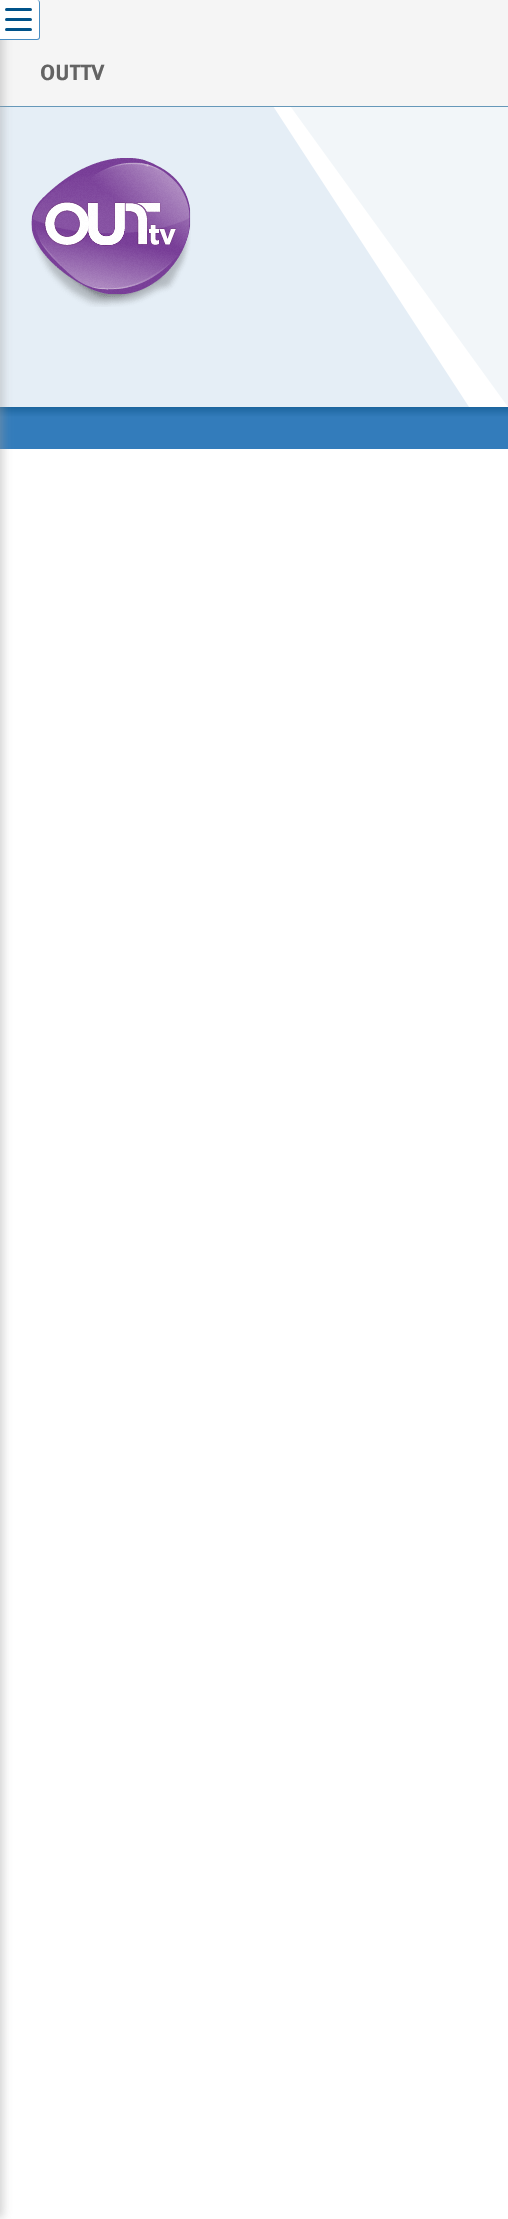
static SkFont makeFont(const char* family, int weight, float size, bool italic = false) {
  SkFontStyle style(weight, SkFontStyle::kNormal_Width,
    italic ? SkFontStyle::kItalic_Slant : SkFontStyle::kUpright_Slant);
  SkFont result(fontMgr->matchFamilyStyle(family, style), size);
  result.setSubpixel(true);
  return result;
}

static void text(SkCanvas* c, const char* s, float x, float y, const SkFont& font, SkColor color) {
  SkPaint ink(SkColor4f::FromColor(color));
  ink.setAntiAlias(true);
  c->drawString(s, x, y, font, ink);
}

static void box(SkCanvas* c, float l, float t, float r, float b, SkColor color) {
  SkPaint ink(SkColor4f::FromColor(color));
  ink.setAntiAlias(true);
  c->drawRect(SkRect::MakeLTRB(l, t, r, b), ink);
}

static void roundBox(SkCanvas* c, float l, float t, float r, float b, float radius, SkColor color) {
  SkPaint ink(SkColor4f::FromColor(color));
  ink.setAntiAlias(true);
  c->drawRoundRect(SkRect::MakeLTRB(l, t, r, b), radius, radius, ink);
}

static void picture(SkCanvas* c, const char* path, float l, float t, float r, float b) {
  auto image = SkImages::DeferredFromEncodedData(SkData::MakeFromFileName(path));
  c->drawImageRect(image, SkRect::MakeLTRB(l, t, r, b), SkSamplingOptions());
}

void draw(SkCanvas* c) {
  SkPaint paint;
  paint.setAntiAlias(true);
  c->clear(0xffffffff);
  box(c, 0, 0, 508, 106, 0xfff5f5f5);
  box(c, 0, 106, 508, 107, 0xff6698b9);
  picture(c, "img_01.png", 0, 107, 469, 407);
  {
    const SkColor colors[] = {0xff1c659e, 0xff337cbb, 0xff337cbb};
    const float stops[] = {0, 0.24f, 1};
    const SkPoint ends[] = {{254, 407}, {254, 449}};
    paint.setShader(SkGradientShader::MakeLinear(ends, colors, stops, 3, SkTileMode::kClamp));
    paint.setAlpha(255);
  }
  c->drawRect(SkRect::MakeLTRB(0, 407, 508, 449), paint);
  paint.setShader(nullptr);
  paint.setColor(0x73999999);
  paint.setMaskFilter(SkMaskFilter::MakeBlur(kNormal_SkBlurStyle, 5));
  c->drawRect(SkRect::MakeLTRB(-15, 7, 3, 2218), paint);
  paint.setMaskFilter(nullptr);
  paint.setColor(0xffffffff);
  c->drawPath(SkPathBuilder().moveTo(0, 0).lineTo(37, 0).cubicTo(38.5f, 0, 40, 1.5f, 40, 3).lineTo(40, 37).cubicTo(40, 38.5f, 38.5f, 40, 37, 40).lineTo(0, 40).close().detach(), paint);
  paint.setColor(0xff478dc3);
  c->drawPath(SkPathBuilder(SkPathFillType::kEvenOdd).moveTo(0, 0).lineTo(37, 0).cubicTo(39, 0, 40, 1, 40, 3).lineTo(40, 37).cubicTo(40, 39, 39, 40, 37, 40).lineTo(0, 40).close().moveTo(0, 0).lineTo(37, 0).cubicTo(38, 0, 39, 1, 39, 3).lineTo(39, 37).cubicTo(39, 38, 38, 39, 37, 39).lineTo(0, 39).close().detach(), paint);
  roundBox(c, 5, 18, 32, 21, 1.5f, 0xff00538a);
  roundBox(c, 5, 8, 32, 11, 1.5f, 0xff00538a);
  roundBox(c, 5, 28, 32, 31, 1.5f, 0xff00538a);
  SkFont face1 = makeFont("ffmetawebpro", 700, 22);
  text(c, "OUTTV", 40, 80, face1, 0xff646464);
  picture(c, "img_02.png", 291, 107, 508, 406);
  picture(c, "img_03.png", 31, 158, 191, 307);
}
